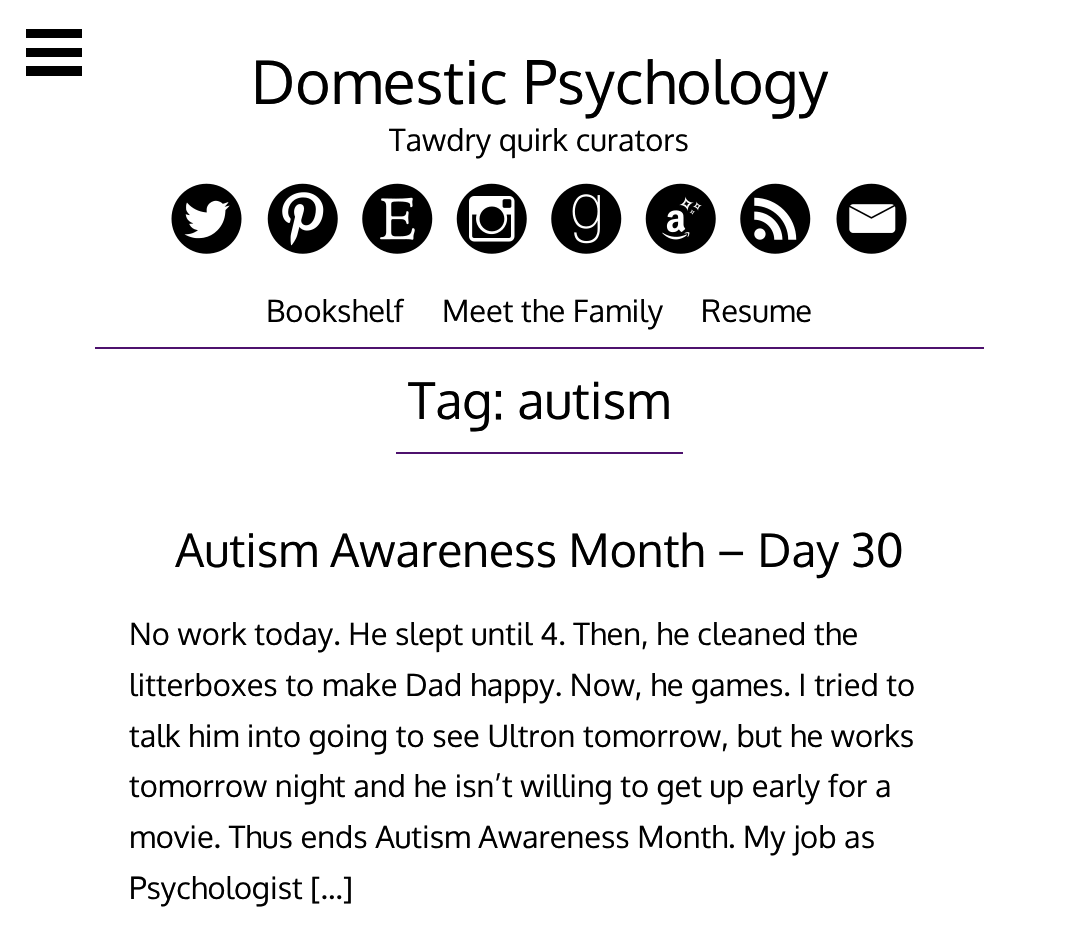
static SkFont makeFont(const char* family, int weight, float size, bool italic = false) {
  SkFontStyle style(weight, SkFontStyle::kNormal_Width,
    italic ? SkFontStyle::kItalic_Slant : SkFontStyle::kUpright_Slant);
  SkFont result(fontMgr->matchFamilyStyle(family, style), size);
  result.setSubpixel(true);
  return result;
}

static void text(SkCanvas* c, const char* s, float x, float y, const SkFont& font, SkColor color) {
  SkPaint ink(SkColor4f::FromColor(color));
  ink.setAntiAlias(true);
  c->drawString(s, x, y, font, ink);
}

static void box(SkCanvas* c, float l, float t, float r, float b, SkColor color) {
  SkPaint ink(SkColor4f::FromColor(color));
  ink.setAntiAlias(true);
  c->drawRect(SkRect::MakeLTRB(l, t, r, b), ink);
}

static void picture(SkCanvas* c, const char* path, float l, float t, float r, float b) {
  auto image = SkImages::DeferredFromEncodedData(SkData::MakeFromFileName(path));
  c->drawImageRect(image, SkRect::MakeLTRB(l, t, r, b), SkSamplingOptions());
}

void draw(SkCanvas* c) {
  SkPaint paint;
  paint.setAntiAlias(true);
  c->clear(0xffffffff);
  box(c, 26, 29, 82, 38, 0xff000000);
  box(c, 26, 48, 82, 57, 0xff000000);
  box(c, 26, 66, 82, 76, 0xff000000);
  box(c, 95, 347, 984, 349, 0xff4d116d);
  SkFont face1 = makeFont("Oxygen", 400, 60.25f);
  text(c, "Domestic Psychology", 251, 104, face1, 0xff000000);
  SkFont face2 = makeFont("Oxygen", 400, 30.8f);
  text(c, "Tawdry quirk curators", 389, 151, face2, 0xff000000);
  picture(c, "img_01.png", 171, 183, 242, 254);
  picture(c, "img_02.png", 267, 183, 338, 254);
  picture(c, "img_03.png", 362, 183, 433, 254);
  picture(c, "img_04.png", 456, 183, 527, 254);
  picture(c, "img_05.png", 551, 183, 622, 254);
  picture(c, "img_06.png", 645, 183, 716, 254);
  picture(c, "img_07.png", 740, 183, 811, 254);
  picture(c, "img_08.png", 836, 183, 907, 254);
  text(c, "Bookshelf", 266, 322, face2, 0xff000000);
  text(c, "Meet the Family", 442, 322, face2, 0xff000000);
  text(c, "Resume", 701, 322, face2, 0xff000000);
  box(c, 396, 452, 683, 454, 0xff4d116d);
  SkFont face3 = makeFont("Oxygen", 400, 51);
  text(c, "Tag: autism", 408, 419, face3, 0xff000000);
  SkFont face4 = makeFont("Oxygen", 400, 46.25f);
  text(c, "Autism Awareness Month – Day 30", 175, 567, face4, 0xff000000);
  text(c, "No work today. He slept until 4. Then, he cleaned the", 129, 645, face2, 0xff000000);
  text(c, "litterboxes to make Dad happy. Now, he games. I tried to", 129, 696, face2, 0xff000000);
  text(c, "talk him into going to see Ultron tomorrow, but he works", 129, 747, face2, 0xff000000);
  text(c, "tomorrow night and he isn’t willing to get up early for a", 129, 797, face2, 0xff000000);
  text(c, "movie. Thus ends Autism Awareness Month. My job as", 129, 848, face2, 0xff000000);
  text(c, "Psychologist […]", 129, 899, face2, 0xff000000);
}
